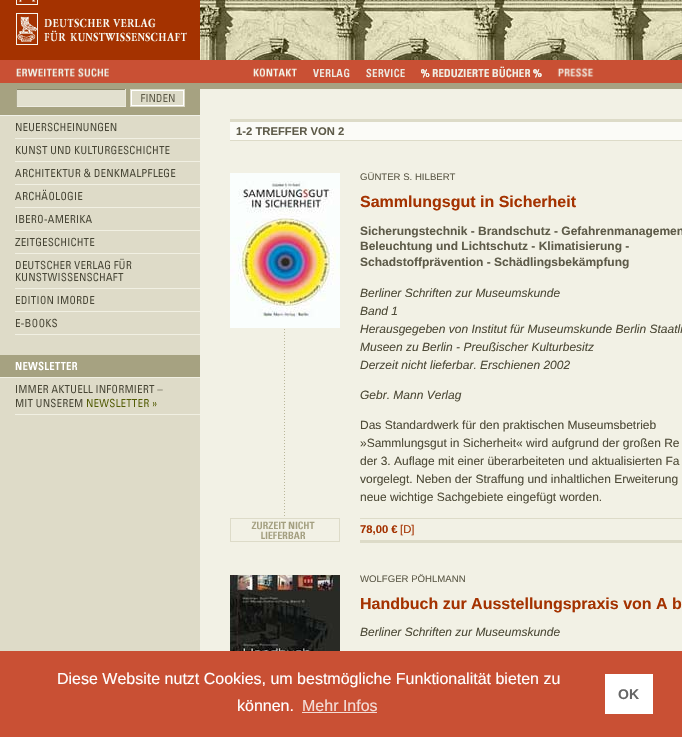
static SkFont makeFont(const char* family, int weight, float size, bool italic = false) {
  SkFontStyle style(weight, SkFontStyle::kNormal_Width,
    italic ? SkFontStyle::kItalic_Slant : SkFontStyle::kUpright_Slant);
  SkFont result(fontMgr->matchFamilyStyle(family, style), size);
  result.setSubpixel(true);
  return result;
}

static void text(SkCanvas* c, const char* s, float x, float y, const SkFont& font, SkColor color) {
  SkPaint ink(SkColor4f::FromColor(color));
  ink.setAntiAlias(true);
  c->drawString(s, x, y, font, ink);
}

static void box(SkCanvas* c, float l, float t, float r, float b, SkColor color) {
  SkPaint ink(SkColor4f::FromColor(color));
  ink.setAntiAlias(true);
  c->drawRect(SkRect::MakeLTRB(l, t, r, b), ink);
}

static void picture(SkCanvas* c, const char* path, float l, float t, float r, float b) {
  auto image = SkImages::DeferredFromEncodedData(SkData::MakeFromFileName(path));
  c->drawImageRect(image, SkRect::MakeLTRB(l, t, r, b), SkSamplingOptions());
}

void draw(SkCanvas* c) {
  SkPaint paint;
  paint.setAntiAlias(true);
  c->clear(0xffdedbc8);
  box(c, 0, 0, 200, 60, 0xffa43200);
  picture(c, "img_01.png", 16, 0, 187, 45);
  picture(c, "img_02.png", 200, 0, 682, 60);
  box(c, 0, 60, 682, 83, 0xffc95034);
  picture(c, "img_03.png", 16, 67, 109, 78);
  picture(c, "img_04.png", 253, 67, 297, 78);
  picture(c, "img_05.png", 313, 68, 350, 78);
  picture(c, "img_06.png", 366, 68, 405, 78);
  picture(c, "img_07.png", 421, 66, 542, 78);
  picture(c, "img_08.png", 557, 67, 594, 78);
  box(c, 0, 83, 200, 115, 0xffa6a281);
  box(c, 0, 115, 200, 116, 0xfff1f1e8);
  box(c, 17, 90, 125, 106, 0xffe2e0cf);
  box(c, 16, 89, 126, 90, 0xff898567);
  box(c, 125, 89, 126, 107, 0xffe8e6d8);
  box(c, 16, 106, 126, 107, 0xffeeece1);
  box(c, 16, 89, 17, 107, 0xffaaa78d);
  picture(c, "img_09.png", 130, 89, 185, 107);
  picture(c, "img_10.png", 15, 122, 200, 139);
  picture(c, "img_11.png", 15, 145, 200, 162);
  picture(c, "img_12.png", 15, 168, 200, 185);
  picture(c, "img_13.png", 15, 189, 200, 208);
  picture(c, "img_14.png", 15, 214, 200, 231);
  picture(c, "img_15.png", 15, 237, 200, 254);
  picture(c, "img_16.png", 15, 258, 200, 289);
  picture(c, "img_17.png", 15, 295, 200, 312);
  picture(c, "img_18.png", 15, 318, 200, 335);
  picture(c, "img_19.png", 0, 355, 200, 378);
  picture(c, "img_20.png", 15, 384, 200, 415);
  box(c, 200, 89, 682, 651, 0xfff2f1e5);
  box(c, 200, 83, 682, 89, 0xffa7a282);
  box(c, 230, 122, 682, 140, 0xfffbfbf7);
  box(c, 230, 119, 682, 122, 0xffdddbc8);
  box(c, 230, 140, 682, 141, 0xffdddbc8);
  SkFont face1 = makeFont("Liberation Sans", 700, 11.25f);
  text(c, "1-2 TREFFER VON 2", 236, 135, face1, 0xff5e5b49);
  picture(c, "img_21.png", 284, 329, 285, 516);
  picture(c, "img_22.png", 230, 173, 340, 328);
  SkFont face2 = makeFont("Liberation Sans", 400, 9.6f);
  text(c, "GÜNTER S. HILBERT", 360, 180, face2, 0xff5e5b49);
  SkFont face3 = makeFont("Liberation Sans", 700, 16);
  text(c, "Sammlungsgut in Sicherheit", 360, 207, face3, 0xffa43200);
  SkFont face4 = makeFont("Liberation Sans", 700, 12);
  text(c, "Sicherungstechnik - Brandschutz - Gefahrenmanagemen", 360, 235, face4, 0xff5e5b49);
  text(c, "Beleuchtung und Lichtschutz - Klimatisierung -", 360, 250, face4, 0xff5e5b49);
  text(c, "Schadstoffprävention - Schädlingsbekämpfung", 360, 266, face4, 0xff5e5b49);
  SkFont face5 = makeFont("Liberation Sans", 400, 12, true);
  text(c, "Berliner Schriften zur Museumskunde", 360, 297, face5, 0xff4e4b38);
  text(c, "Band 1", 360, 315, face5, 0xff4e4b38);
  text(c, "Herausgegeben von Institut für Museumskunde Berlin Staatli", 360, 333, face5, 0xff4e4b38);
  text(c, "Museen zu Berlin - Preußischer Kulturbesitz", 360, 351, face5, 0xff4e4b38);
  text(c, "Derzeit nicht lieferbar. Erschienen 2002", 360, 369, face5, 0xff4e4b38);
  text(c, "Gebr. Mann Verlag", 360, 399, face5, 0xff4e4b38);
  SkFont face6 = makeFont("Liberation Sans", 400, 12);
  text(c, "Das Standardwerk für den praktischen Museumsbetrieb", 360, 429, face6, 0xff4e4b38);
  text(c, "»Sammlungsgut in Sicherheit« wird aufgrund der großen Re", 360, 447, face6, 0xff4e4b38);
  text(c, "der 3. Auflage mit einer überarbeiteten und aktualisierten Fa", 360, 465, face6, 0xff4e4b38);
  text(c, "vorgelegt. Neben der Straffung und inhaltlichen Erweiterung", 360, 483, face6, 0xff4e4b38);
  text(c, "neue wichtige Sachgebiete eingefügt worden.", 360, 501, face6, 0xff4e4b38);
  picture(c, "img_23.png", 230, 518, 340, 542);
  box(c, 360, 518, 682, 519, 0xffdddbc8);
  box(c, 360, 540, 682, 543, 0xffdddbc8);
  text(c, "78,00 €", 360, 533, face1, 0xffa43200);
  SkFont face7 = makeFont("Liberation Sans", 400, 11.25f);
  text(c, "[D]", 400, 533, face7, 0xffa43200);
  picture(c, "img_24.png", 230, 575, 340, 651);
  text(c, "WOLFGER PÖHLMANN", 360, 582, face2, 0xff5e5b49);
  text(c, "Handbuch zur Ausstellungspraxis von A b", 360, 609, face3, 0xffa43200);
  text(c, "Berliner Schriften zur Museumskunde", 360, 636, face5, 0xff4e4b38);
  box(c, 0, 651, 682, 737, 0xffc95034);
  SkFont face8 = makeFont("Liberation Sans", 400, 16);
  text(c, "Diese Website nutzt Cookies, um bestmögliche Funktionalität bieten zu", 57, 684, face8, 0xffffffff);
  text(c, "können.", 237, 711, face8, 0xffffffff);
  text(c, "Mehr Infos", 302, 711, face8, 0xfff4dcd6);
  box(c, 302, 712, 377, 713, 0xfff4dcd6);
  box(c, 605, 674, 653, 714, 0xffffffff);
  SkFont face9 = makeFont("Liberation Sans", 700, 14);
  text(c, "OK", 618, 699, face9, 0xff666666);
}
